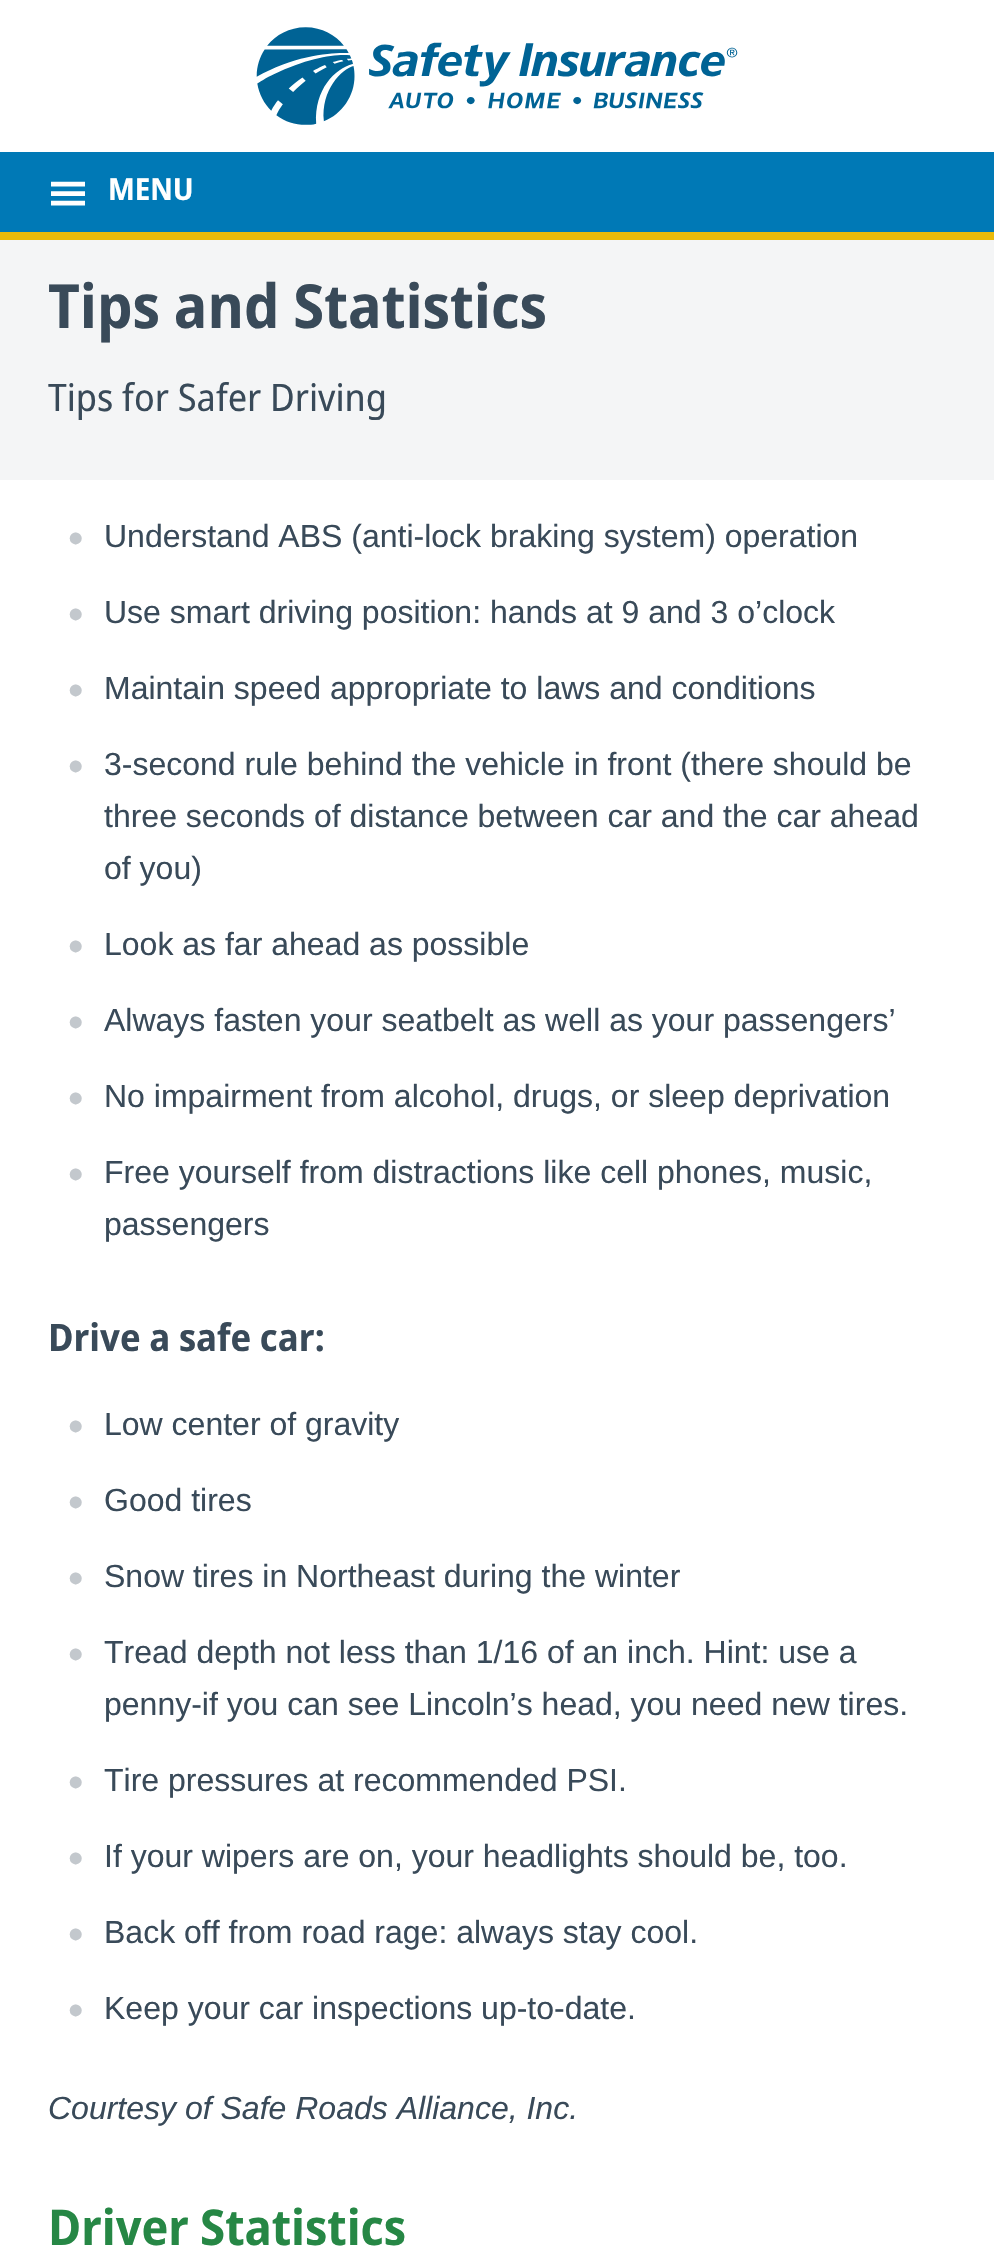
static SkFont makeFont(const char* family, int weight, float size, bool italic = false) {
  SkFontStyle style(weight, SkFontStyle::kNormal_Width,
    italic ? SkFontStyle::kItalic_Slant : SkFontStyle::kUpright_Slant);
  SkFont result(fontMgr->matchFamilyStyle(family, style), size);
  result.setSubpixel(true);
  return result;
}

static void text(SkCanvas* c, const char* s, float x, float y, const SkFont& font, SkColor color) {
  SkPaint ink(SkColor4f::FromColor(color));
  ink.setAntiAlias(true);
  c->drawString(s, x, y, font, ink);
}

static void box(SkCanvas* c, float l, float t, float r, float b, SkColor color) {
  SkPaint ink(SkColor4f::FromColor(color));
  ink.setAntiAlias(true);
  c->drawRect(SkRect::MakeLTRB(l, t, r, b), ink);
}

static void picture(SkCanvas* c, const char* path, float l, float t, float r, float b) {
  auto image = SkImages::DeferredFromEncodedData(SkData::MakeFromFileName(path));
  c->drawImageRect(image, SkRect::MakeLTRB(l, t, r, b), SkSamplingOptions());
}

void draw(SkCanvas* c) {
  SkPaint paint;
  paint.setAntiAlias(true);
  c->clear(0xffffffff);
  picture(c, "img_01.png", 256, 27, 738, 125);
  box(c, 0, 152, 994, 232, 0xff0079b6);
  box(c, 0, 232, 994, 240, 0xffeaba0a);
  picture(c, "img_02.png", 51, 181, 85, 206);
  SkFont face1 = makeFont("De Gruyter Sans", 700, 32);
  text(c, "MENU", 108, 200, face1, 0xffffffff);
  box(c, 0, 240, 994, 480, 0xfff4f5f6);
  SkFont face2 = makeFont("De Gruyter Sans", 700, 64);
  text(c, "Tips and Statistics", 48, 328, face2, 0xff394a59);
  SkFont face3 = makeFont("De Gruyter Sans", 400, 40);
  text(c, "Tips for Safer Driving", 48, 411, face3, 0xff394a59);
  SkFont face4 = makeFont("Liberation Sans", 400, 44);
  text(c, "•", 68, 553, face4, 0xffc3c8cd);
  SkFont face5 = makeFont("Liberation Sans", 400, 32);
  text(c, "Understand ABS (anti-lock braking system) operation", 104, 547, face5, 0xff394a59);
  text(c, "•", 68, 629, face4, 0xffc3c8cd);
  text(c, "Use smart driving position: hands at 9 and 3 o’clock", 104, 623, face5, 0xff394a59);
  text(c, "•", 68, 705, face4, 0xffc3c8cd);
  text(c, "Maintain speed appropriate to laws and conditions", 104, 699, face5, 0xff394a59);
  text(c, "•", 68, 781, face4, 0xffc3c8cd);
  text(c, "3-second rule behind the vehicle in front (there should be", 104, 775, face5, 0xff394a59);
  text(c, "three seconds of distance between car and the car ahead", 104, 827, face5, 0xff394a59);
  text(c, "of you)", 104, 879, face5, 0xff394a59);
  text(c, "•", 68, 961, face4, 0xffc3c8cd);
  text(c, "Look as far ahead as possible", 104, 955, face5, 0xff394a59);
  text(c, "•", 68, 1037, face4, 0xffc3c8cd);
  text(c, "Always fasten your seatbelt as well as your passengers’", 104, 1031, face5, 0xff394a59);
  text(c, "•", 68, 1113, face4, 0xffc3c8cd);
  text(c, "No impairment from alcohol, drugs, or sleep deprivation", 104, 1107, face5, 0xff394a59);
  text(c, "•", 68, 1189, face4, 0xffc3c8cd);
  text(c, "Free yourself from distractions like cell phones, music,", 104, 1183, face5, 0xff394a59);
  text(c, "passengers", 104, 1235, face5, 0xff394a59);
  SkFont face6 = makeFont("De Gruyter Sans", 700, 40);
  text(c, "Drive a safe car:", 48, 1351, face6, 0xff394a59);
  text(c, "•", 68, 1441, face4, 0xffc3c8cd);
  text(c, "Low center of gravity", 104, 1435, face5, 0xff394a59);
  text(c, "•", 68, 1517, face4, 0xffc3c8cd);
  text(c, "Good tires", 104, 1511, face5, 0xff394a59);
  text(c, "•", 68, 1593, face4, 0xffc3c8cd);
  text(c, "Snow tires in Northeast during the winter", 104, 1587, face5, 0xff394a59);
  text(c, "•", 68, 1669, face4, 0xffc3c8cd);
  text(c, "Tread depth not less than 1/16 of an inch. Hint: use a", 104, 1663, face5, 0xff394a59);
  text(c, "penny-if you can see Lincoln’s head, you need new tires.", 104, 1715, face5, 0xff394a59);
  text(c, "•", 68, 1797, face4, 0xffc3c8cd);
  text(c, "Tire pressures at recommended PSI.", 104, 1791, face5, 0xff394a59);
  text(c, "•", 68, 1873, face4, 0xffc3c8cd);
  text(c, "If your wipers are on, your headlights should be, too.", 104, 1867, face5, 0xff394a59);
  text(c, "•", 68, 1949, face4, 0xffc3c8cd);
  text(c, "Back off from road rage: always stay cool.", 104, 1943, face5, 0xff394a59);
  text(c, "•", 68, 2025, face4, 0xffc3c8cd);
  text(c, "Keep your car inspections up-to-date.", 104, 2019, face5, 0xff394a59);
  SkFont face7 = makeFont("Liberation Sans", 400, 32, true);
  text(c, "Courtesy of Safe Roads Alliance, Inc.", 48, 2119, face7, 0xff394a59);
  SkFont face8 = makeFont("De Gruyter Sans", 700, 52);
  text(c, "Driver Statistics", 48, 2245, face8, 0xff268745);
}
